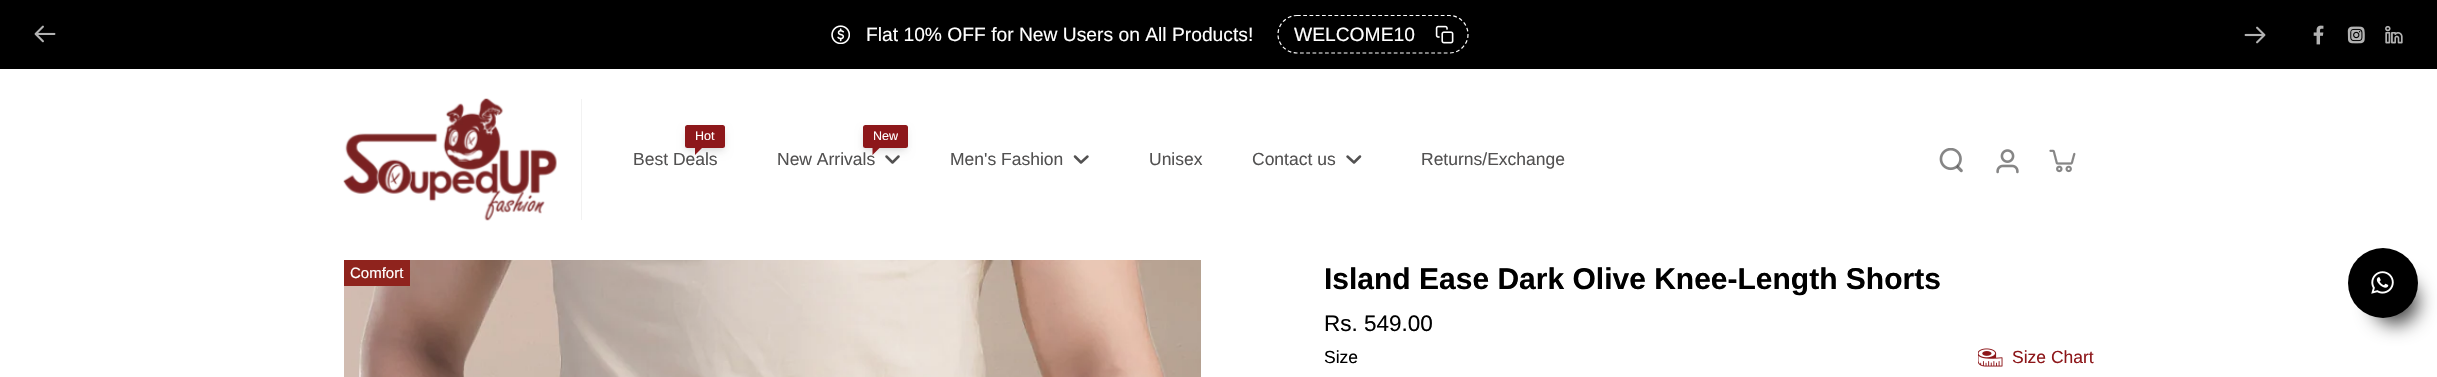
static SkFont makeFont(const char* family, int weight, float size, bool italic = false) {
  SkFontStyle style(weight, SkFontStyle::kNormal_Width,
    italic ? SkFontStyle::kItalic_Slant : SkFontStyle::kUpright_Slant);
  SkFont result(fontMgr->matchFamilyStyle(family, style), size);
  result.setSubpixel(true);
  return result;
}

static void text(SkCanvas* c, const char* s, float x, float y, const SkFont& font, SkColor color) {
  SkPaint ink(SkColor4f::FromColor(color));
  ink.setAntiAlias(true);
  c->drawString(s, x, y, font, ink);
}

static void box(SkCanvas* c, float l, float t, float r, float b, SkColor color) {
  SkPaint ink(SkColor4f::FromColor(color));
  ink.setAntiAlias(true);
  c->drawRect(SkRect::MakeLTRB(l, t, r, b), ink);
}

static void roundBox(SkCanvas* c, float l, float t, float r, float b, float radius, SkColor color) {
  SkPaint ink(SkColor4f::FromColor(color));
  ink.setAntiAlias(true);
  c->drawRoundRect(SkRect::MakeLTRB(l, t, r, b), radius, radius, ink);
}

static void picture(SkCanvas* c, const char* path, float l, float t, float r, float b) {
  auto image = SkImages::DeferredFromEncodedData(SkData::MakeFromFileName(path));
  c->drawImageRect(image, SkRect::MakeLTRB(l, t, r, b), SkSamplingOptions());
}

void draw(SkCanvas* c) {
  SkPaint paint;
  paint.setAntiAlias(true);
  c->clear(0xffffffff);
  box(c, 0, 0, 2437, 69, 0xff000000);
  picture(c, "img_01.png", 34, 25, 56, 43);
  picture(c, "img_02.png", 2244, 26, 2266, 44);
  picture(c, "img_03.png", 831, 25, 850, 44);
  SkFont face1 = makeFont("Liberation Sans", 400, 19.25f);
  text(c, "Flat 10% OFF for New Users on All Products!", 866, 41, face1, 0xffffffff);
  paint.setStyle(SkPaint::kStroke_Style);
  paint.setStrokeWidth(1.2f);
  paint.setColor(0xffffffff);
  paint.setPathEffect(SkDashPathEffect::Make({{3.75f, 2.5f}}, 0));
  c->drawPath(SkPathBuilder().moveTo(1297, 15.5f).lineTo(1449.5f, 15.5f).cubicTo(1459.5f, 15.5f, 1468, 24, 1468, 34.5f).cubicTo(1468, 44.5f, 1459.5f, 53, 1449.5f, 53).lineTo(1297, 53).cubicTo(1286.5f, 53, 1278, 44.5f, 1278, 34.5f).cubicTo(1278, 24, 1286.5f, 15.5f, 1297, 15.5f).close().detach(), paint);
  paint.setPathEffect(nullptr);
  text(c, "WELCOME10", 1294, 41, face1, 0xffffffff);
  picture(c, "img_04.png", 1435, 25, 1454, 44);
  picture(c, "img_05.png", 2313, 25, 2324, 45);
  picture(c, "img_06.png", 2347, 26, 2365, 44);
  picture(c, "img_07.png", 2385, 25, 2403, 44);
  box(c, 581, 99, 582, 220, 0xfff2f2f2);
  picture(c, "img_08.png", 343, 98, 557, 221);
  paint.setStyle(SkPaint::kFill_Style);
  paint.setColor(0x1a000000);
  paint.setMaskFilter(SkMaskFilter::MakeBlur(kNormal_SkBlurStyle, 2.5f));
  c->drawRect(SkRect::MakeLTRB(688, 130, 723, 148), paint);
  paint.setMaskFilter(nullptr);
  paint.setMaskFilter(SkMaskFilter::MakeBlur(kNormal_SkBlurStyle, 4));
  c->drawRoundRect(SkRect::MakeLTRB(686, 131, 724, 151), 1, 1, paint);
  paint.setMaskFilter(nullptr);
  roundBox(c, 685, 125, 725, 148, 2.5f, 0xff8d171a);
  SkFont face2 = makeFont("Liberation Sans", 400, 12.5f);
  text(c, "Hot", 695, 140, face2, 0xffffffff);
  SkFont face3 = makeFont("Liberation Sans", 400, 17.5f);
  text(c, "Best Deals", 633, 165, face3, 0xff525151);
  paint.setColor(0xff8d171a);
  c->drawPath(SkPathBuilder().moveTo(695, 145).lineTo(705, 145).lineTo(695, 155).close().detach(), paint);
  paint.setStyle(SkPaint::kStroke_Style);
  paint.setStrokeWidth(2.5f);
  paint.setStrokeCap(SkPaint::kRound_Cap);
  paint.setStrokeJoin(SkPaint::kRound_Join);
  paint.setColor(0xff525151);
  c->drawPath(SkPathBuilder().moveTo(886.5f, 156.5f).lineTo(892.5f, 162.5f).lineTo(898.5f, 156.5f).detach(), paint);
  paint.setStyle(SkPaint::kFill_Style);
  paint.setColor(0x1a000000);
  paint.setMaskFilter(SkMaskFilter::MakeBlur(kNormal_SkBlurStyle, 2.5f));
  c->drawRect(SkRect::MakeLTRB(865, 130, 905, 148), paint);
  paint.setMaskFilter(nullptr);
  paint.setMaskFilter(SkMaskFilter::MakeBlur(kNormal_SkBlurStyle, 4));
  c->drawRoundRect(SkRect::MakeLTRB(864, 131, 906, 151), 1, 1, paint);
  paint.setMaskFilter(nullptr);
  roundBox(c, 863, 125, 908, 148, 2.5f, 0xff8d171a);
  text(c, "New", 873, 140, face2, 0xffffffff);
  text(c, "New Arrivals", 777, 165, face3, 0xff525151);
  paint.setColor(0xff8d171a);
  c->drawPath(SkPathBuilder().moveTo(872.5f, 145).lineTo(882.5f, 145).lineTo(872.5f, 155).close().detach(), paint);
  text(c, "Men's Fashion", 950, 165, face3, 0xff525151);
  paint.setStyle(SkPaint::kStroke_Style);
  paint.setColor(0xff525151);
  c->drawPath(SkPathBuilder().moveTo(1075, 156.5f).lineTo(1081, 162.5f).lineTo(1087.5f, 156.5f).detach(), paint);
  text(c, "Unisex", 1149, 165, face3, 0xff525151);
  text(c, "Contact us", 1252, 165, face3, 0xff525151);
  c->drawPath(SkPathBuilder().moveTo(1347.5f, 156.5f).lineTo(1354, 162.5f).lineTo(1360, 156.5f).detach(), paint);
  text(c, "Returns/Exchange", 1421, 165, face3, 0xff525151);
  picture(c, "img_09.png", 1939, 148, 1963, 173);
  picture(c, "img_10.png", 1996, 149, 2019, 174);
  picture(c, "img_11.png", 2049, 149, 2076, 173);
  picture(c, "img_12.png", 344, 260, 1201, 377);
  box(c, 344, 260, 410, 286, 0xff8f231d);
  SkFont face4 = makeFont("Liberation Sans", 400, 15);
  text(c, "Comfort", 350, 278, face4, 0xffffffff);
  SkFont face5 = makeFont("Liberation Sans", 700, 30);
  text(c, "Island Ease Dark Olive Knee-Length Shorts", 1324, 289, face5, 0xff000000);
  SkFont face6 = makeFont("Liberation Sans", 400, 22.5f);
  text(c, "Rs. 549.00", 1324, 331, face6, 0xff000000);
  text(c, "Size", 1324, 363, face3, 0xff000000);
  picture(c, "img_13.png", 1978, 348, 2003, 367);
  text(c, "Size Chart", 2012, 363, face3, 0xff8d171a);
  paint.setStyle(SkPaint::kFill_Style);
  paint.setColor(0xbf000000);
  paint.setMaskFilter(SkMaskFilter::MakeBlur(kNormal_SkBlurStyle, 9.5f));
  c->drawRoundRect(SkRect::MakeLTRB(2373, 279, 2418, 324), 22.5f, 22.5f, paint);
  paint.setMaskFilter(nullptr);
  paint.setColor(0xff000000);
  c->drawCircle(2383, 283, 35, paint);
  picture(c, "img_14.png", 2371, 271, 2394, 294);
}
